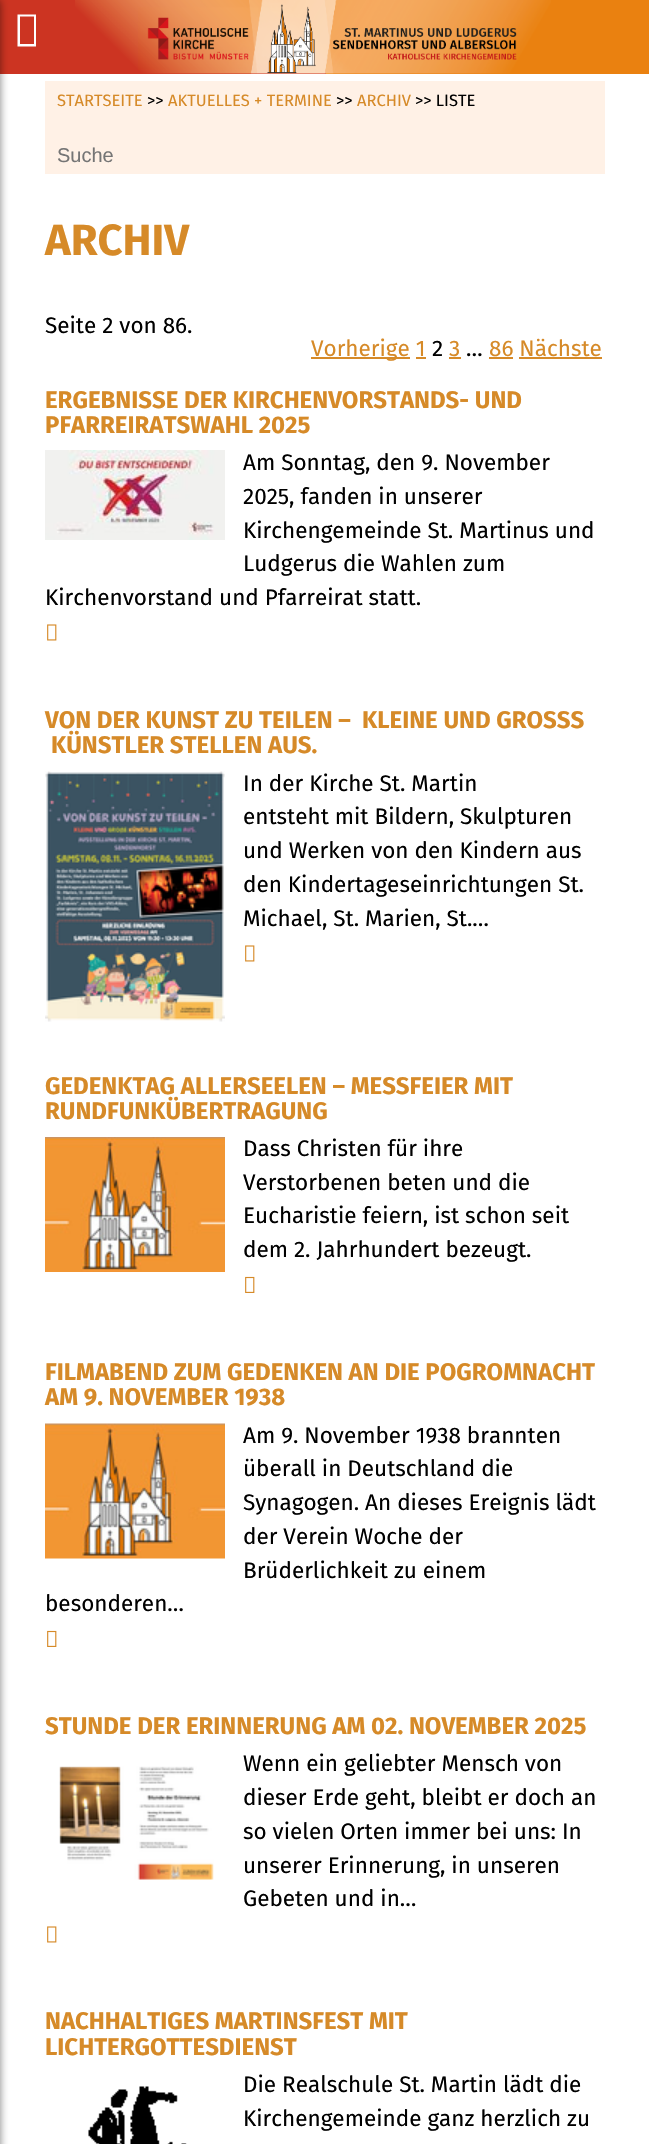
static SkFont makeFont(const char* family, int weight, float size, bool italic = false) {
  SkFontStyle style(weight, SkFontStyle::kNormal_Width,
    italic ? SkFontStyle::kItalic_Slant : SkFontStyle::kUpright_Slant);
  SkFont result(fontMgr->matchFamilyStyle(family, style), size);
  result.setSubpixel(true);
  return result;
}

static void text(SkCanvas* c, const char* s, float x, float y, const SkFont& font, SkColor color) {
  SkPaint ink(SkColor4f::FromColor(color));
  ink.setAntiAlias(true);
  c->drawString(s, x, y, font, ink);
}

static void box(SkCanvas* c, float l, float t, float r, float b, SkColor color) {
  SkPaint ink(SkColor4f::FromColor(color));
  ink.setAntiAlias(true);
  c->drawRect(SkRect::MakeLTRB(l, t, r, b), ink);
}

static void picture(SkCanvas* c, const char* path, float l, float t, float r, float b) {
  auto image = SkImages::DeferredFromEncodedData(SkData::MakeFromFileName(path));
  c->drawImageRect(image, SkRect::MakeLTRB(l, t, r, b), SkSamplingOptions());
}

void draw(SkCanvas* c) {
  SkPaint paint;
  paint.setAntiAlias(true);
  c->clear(0xffcc3422);
  box(c, 0, 74, 649, 2144, 0xffffffff);
  paint.setColor(0x80000000);
  paint.setMaskFilter(SkMaskFilter::MakeBlur(kNormal_SkBlurStyle, 4));
  c->drawRect(SkRect::MakeLTRB(-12, 0, 0, 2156), paint);
  paint.setMaskFilter(nullptr);
  paint.setColor(0xffffffff);
  c->drawPath(SkPathBuilder().moveTo(17.5f, 46.5f).lineTo(17.5f, 14.5f).lineTo(36, 14.5f).lineTo(36, 46.5f).close().moveTo(20, 44).lineTo(34, 44).lineTo(34, 16.5f).lineTo(20, 16.5f).close().detach(), paint);
  box(c, 326, 0, 649, 74, 0xffea8110);
  picture(c, "img_01.png", 75, 0, 551, 74);
  box(c, 45, 81, 605, 174, 0xfffff1e6);
  SkFont face1 = makeFont("Fira Sans", 400, 16.5f);
  text(c, "STARTSEITE", 57, 106, face1, 0xffd68a28);
  text(c, ">>", 147, 106, face1, 0xff000000);
  text(c, "AKTUELLES + TERMINE", 168, 106, face1, 0xffd68a28);
  text(c, ">>", 336, 106, face1, 0xff000000);
  text(c, "ARCHIV", 357, 106, face1, 0xffd68a28);
  text(c, ">> LISTE", 415, 106, face1, 0xff000000);
  SkFont face2 = makeFont("Liberation Sans", 400, 20);
  text(c, "Suche", 57, 162, face2, 0xff757575);
  SkFont face3 = makeFont("Fira Sans", 700, 43.5f);
  text(c, "ARCHIV", 45, 255, face3, 0xffd68a28);
  SkFont face4 = makeFont("Fira Sans", 400, 22.5f);
  text(c, "Seite 2 von 86.", 45, 333, face4, 0xff000000);
  box(c, 311, 357, 410, 359, 0xffd68a28);
  text(c, "Vorherige 1", 311, 356, face4, 0xffd68a28);
  text(c, "2", 432, 356, face4, 0xff000000);
  text(c, "3", 449, 356, face4, 0xffd68a28);
  box(c, 449, 357, 461, 359, 0xffd68a28);
  text(c, "…", 466, 356, face4, 0xff000000);
  text(c, "86 Nächste", 489, 356, face4, 0xffd68a28);
  box(c, 489, 357, 513, 359, 0xffd68a28);
  box(c, 416, 357, 426, 359, 0xffd68a28);
  box(c, 519, 357, 602, 359, 0xffd68a28);
  SkFont face5 = makeFont("Fira Sans", 700, 24);
  text(c, "ERGEBNISSE DER KIRCHENVORSTANDS- UND", 45, 408, face5, 0xffd68a28);
  text(c, "PFARREIRATSWAHL 2025", 45, 433, face5, 0xffd68a28);
  picture(c, "img_02.png", 45, 450, 225, 540);
  text(c, "Am Sonntag, den 9. November", 243, 470, face4, 0xff000000);
  text(c, "2025, fanden in unserer", 243, 504, face4, 0xff000000);
  text(c, "Kirchengemeinde St. Martinus und", 243, 538, face4, 0xff000000);
  text(c, "Ludgerus die Wahlen zum", 243, 571, face4, 0xff000000);
  text(c, "Kirchenvorstand und Pfarreirat statt.", 45, 605, face4, 0xff000000);
  picture(c, "img_03.png", 47, 624, 57, 641);
  text(c, "VON DER KUNST ZU TEILEN –", 45, 728, face5, 0xffd68a28);
  text(c, "KLEINE UND GROSSS", 362, 728, face5, 0xffd68a28);
  text(c, "KÜNSTLER STELLEN AUS.", 51, 753, face5, 0xffd68a28);
  picture(c, "img_04.png", 45, 771, 225, 1022);
  text(c, "In der Kirche St. Martin", 243, 791, face4, 0xff000000);
  text(c, "entsteht mit Bildern, Skulpturen", 243, 824, face4, 0xff000000);
  text(c, "und Werken von den Kindern aus", 243, 858, face4, 0xff000000);
  text(c, "den Kindertageseinrichtungen St.", 243, 892, face4, 0xff000000);
  text(c, "Michael, St. Marien, St.…", 243, 926, face4, 0xff000000);
  picture(c, "img_03.png", 245, 945, 255, 962);
  text(c, "GEDENKTAG ALLERSEELEN – MESSFEIER MIT", 45, 1094, face5, 0xffd68a28);
  text(c, "RUNDFUNKÜBERTRAGUNG", 45, 1119, face5, 0xffd68a28);
  picture(c, "img_05.png", 45, 1137, 225, 1272);
  text(c, "Dass Christen für ihre", 243, 1156, face4, 0xff000000);
  text(c, "Verstorbenen beten und die", 243, 1190, face4, 0xff000000);
  text(c, "Eucharistie feiern, ist schon seit", 243, 1223, face4, 0xff000000);
  text(c, "dem 2. Jahrhundert bezeugt.", 243, 1257, face4, 0xff000000);
  picture(c, "img_06.png", 245, 1276, 255, 1293);
  text(c, "FILMABEND ZUM GEDENKEN AN DIE POGROMNACHT", 45, 1380, face5, 0xffd68a28);
  text(c, "AM 9. NOVEMBER 1938", 45, 1405, face5, 0xffd68a28);
  picture(c, "img_07.png", 45, 1423, 225, 1559);
  text(c, "Am 9. November 1938 brannten", 243, 1443, face4, 0xff000000);
  text(c, "überall in Deutschland die", 243, 1476, face4, 0xff000000);
  text(c, "Synagogen. An dieses Ereignis lädt", 243, 1510, face4, 0xff000000);
  text(c, "der Verein Woche der", 243, 1544, face4, 0xff000000);
  text(c, "Brüderlichkeit zu einem", 243, 1578, face4, 0xff000000);
  text(c, "besonderen…", 45, 1611, face4, 0xff000000);
  picture(c, "img_06.png", 47, 1630, 57, 1647);
  text(c, "STUNDE DER ERINNERUNG AM 02. NOVEMBER 2025", 45, 1734, face5, 0xffd68a28);
  picture(c, "img_08.png", 59, 1766, 214, 1880);
  text(c, "Wenn ein geliebter Mensch von", 243, 1771, face4, 0xff000000);
  text(c, "dieser Erde geht, bleibt er doch an", 243, 1805, face4, 0xff000000);
  text(c, "so vielen Orten immer bei uns: In", 243, 1839, face4, 0xff000000);
  text(c, "unserer Erinnerung, in unseren", 243, 1873, face4, 0xff000000);
  text(c, "Gebeten und in…", 243, 1906, face4, 0xff000000);
  picture(c, "img_03.png", 47, 1926, 57, 1943);
  text(c, "NACHHALTIGES MARTINSFEST MIT", 45, 2029, face5, 0xffd68a28);
  text(c, "LICHTERGOTTESDIENST", 45, 2055, face5, 0xffd68a28);
  picture(c, "img_09.png", 88, 2086, 187, 2144);
  text(c, "Die Realschule St. Martin lädt die", 243, 2092, face4, 0xff000000);
  text(c, "Kirchengemeinde ganz herzlich zu", 243, 2126, face4, 0xff000000);
}
